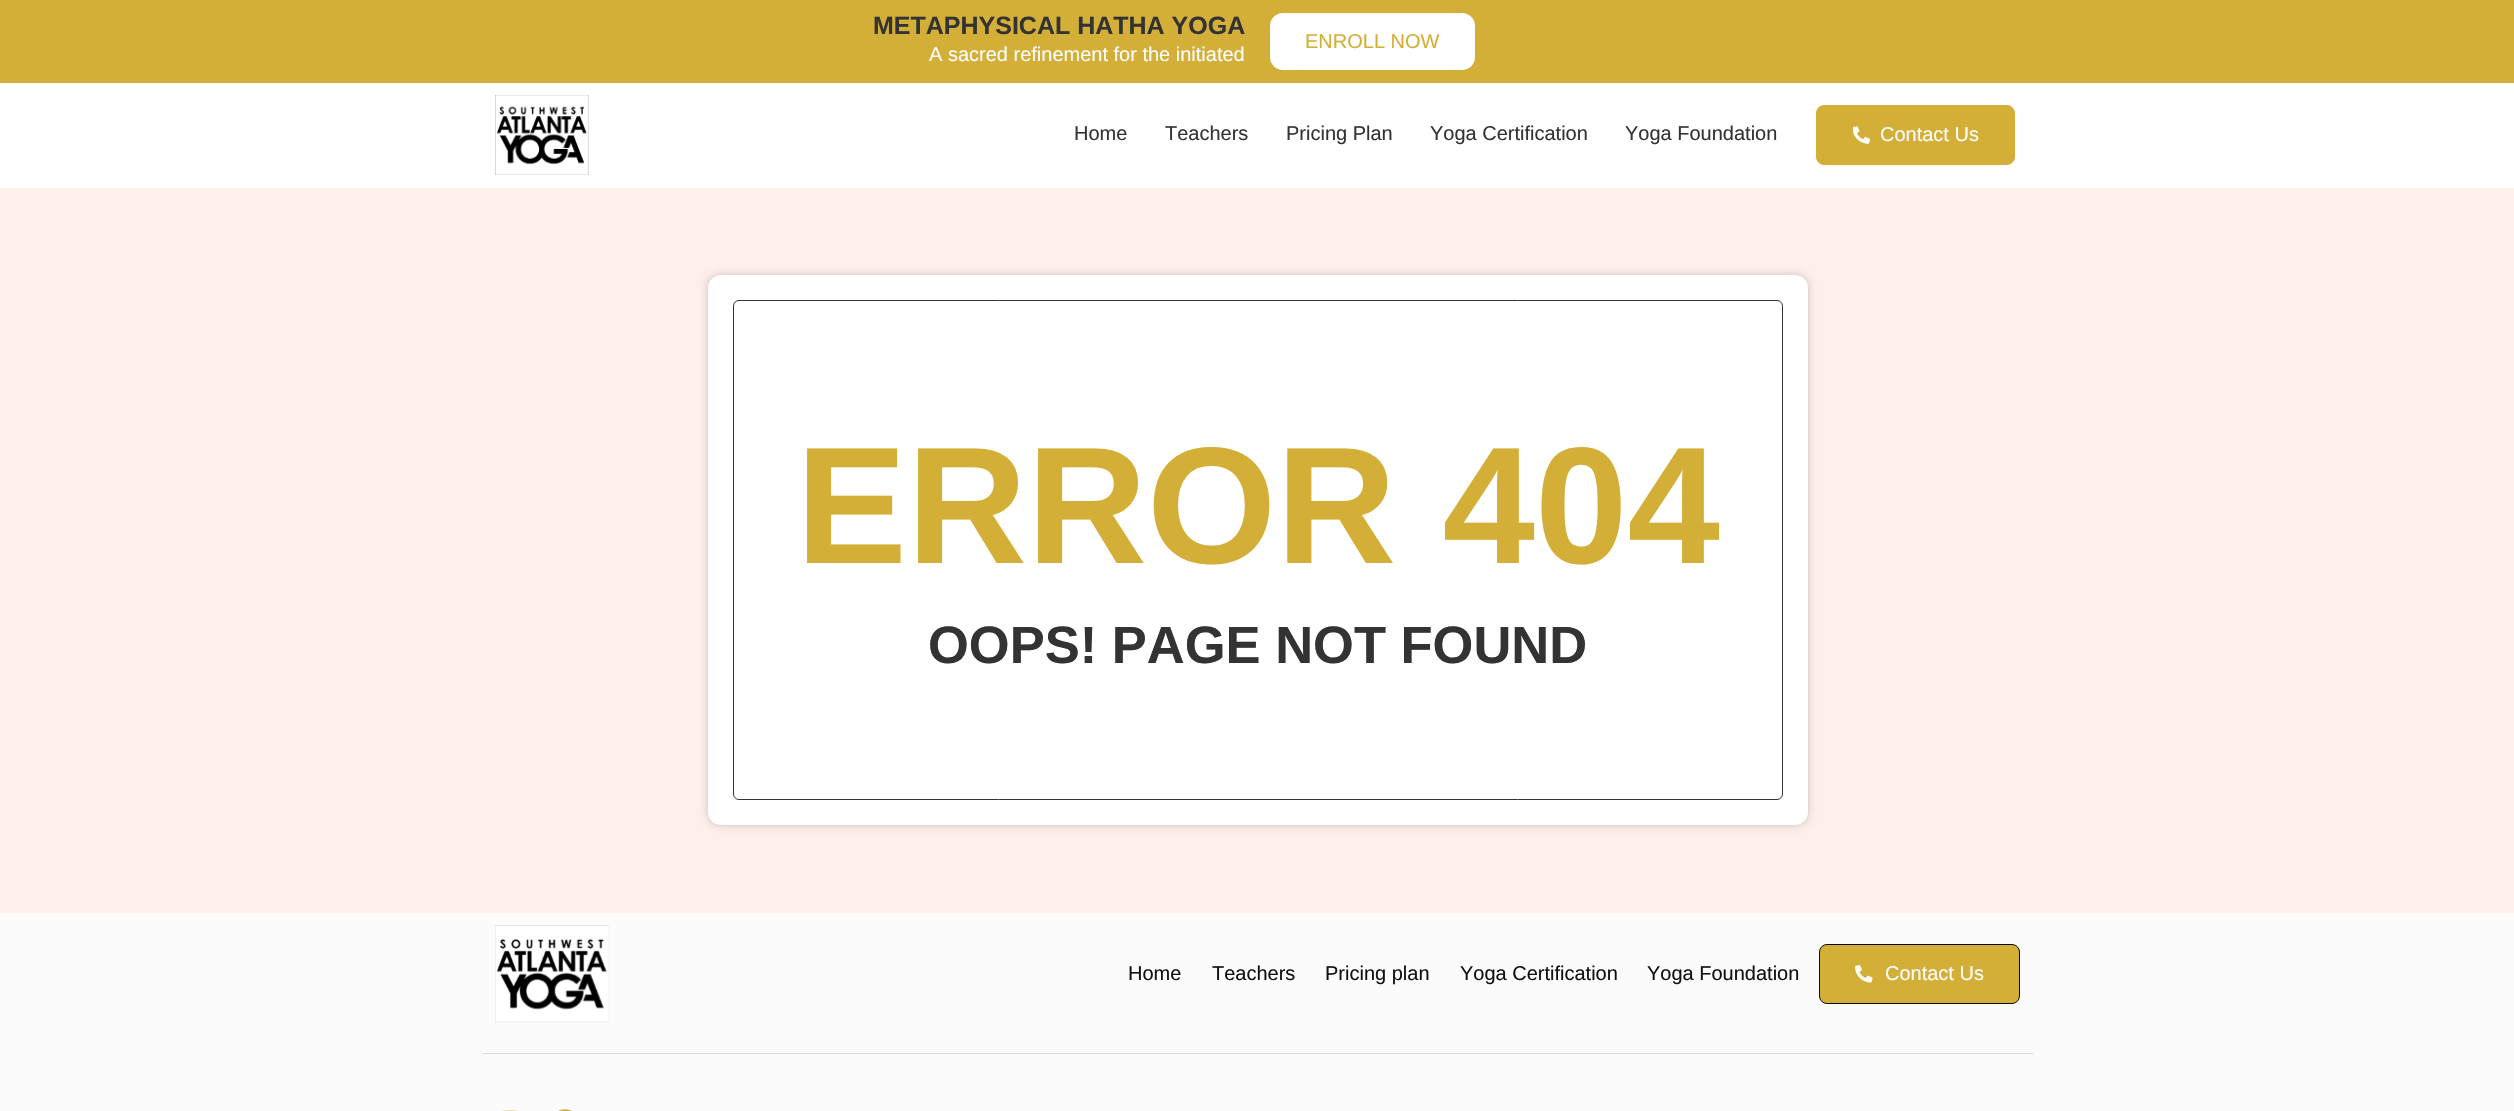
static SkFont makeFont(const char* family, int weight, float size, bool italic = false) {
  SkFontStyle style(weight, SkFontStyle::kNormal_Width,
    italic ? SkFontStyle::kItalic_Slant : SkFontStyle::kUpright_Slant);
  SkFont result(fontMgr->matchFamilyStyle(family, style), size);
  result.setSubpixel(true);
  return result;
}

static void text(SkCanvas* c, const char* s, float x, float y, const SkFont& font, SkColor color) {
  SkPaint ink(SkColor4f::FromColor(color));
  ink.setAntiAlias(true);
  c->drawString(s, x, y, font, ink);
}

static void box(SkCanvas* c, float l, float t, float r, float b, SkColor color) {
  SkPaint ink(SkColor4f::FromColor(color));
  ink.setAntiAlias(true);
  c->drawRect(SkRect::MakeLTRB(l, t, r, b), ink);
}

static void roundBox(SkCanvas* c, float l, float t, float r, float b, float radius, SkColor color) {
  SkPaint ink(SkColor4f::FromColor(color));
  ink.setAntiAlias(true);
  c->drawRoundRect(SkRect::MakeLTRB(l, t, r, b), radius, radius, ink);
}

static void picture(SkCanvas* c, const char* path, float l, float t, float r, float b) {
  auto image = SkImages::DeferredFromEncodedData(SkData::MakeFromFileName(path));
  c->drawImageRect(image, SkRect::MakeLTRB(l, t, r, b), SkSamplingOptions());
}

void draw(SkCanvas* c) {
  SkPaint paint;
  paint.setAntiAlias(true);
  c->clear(0xfffbfbfb);
  box(c, 0, 0, 2514, 83, 0xffd4af37);
  SkFont face1 = makeFont("Liberation Sans", 700, 25);
  text(c, "METAPHYSICAL HATHA YOGA", 873, 34, face1, 0xff333333);
  SkFont face2 = makeFont("Liberation Sans", 400, 20);
  text(c, "A sacred refinement for the initiated", 929, 61, face2, 0xfffcfcfc);
  roundBox(c, 1270, 13, 1475, 70, 13, 0xffffffff);
  text(c, "ENROLL NOW", 1305, 48, face2, 0xffd4af37);
  box(c, 0, 83, 2514, 188, 0xffffffff);
  picture(c, "img_01.png", 495, 95, 589, 175);
  text(c, "Home", 1074, 140, face2, 0xff333333);
  text(c, "Teachers", 1165, 140, face2, 0xff333333);
  text(c, "Pricing Plan", 1286, 140, face2, 0xff333333);
  text(c, "Yoga Certification", 1430, 140, face2, 0xff333333);
  text(c, "Yoga Foundation", 1625, 140, face2, 0xff333333);
  paint.setColor(0xffd4af37);
  c->drawRoundRect(SkRect::MakeLTRB(1816.5f, 105.5f, 2014.5f, 164.5f), 7.5f, 7.5f, paint);
  paint.setStyle(SkPaint::kStroke_Style);
  paint.setStrokeWidth(1);
  c->drawRoundRect(SkRect::MakeLTRB(1816.5f, 105.5f, 2014.5f, 164.5f), 7.5f, 7.5f, paint);
  picture(c, "img_02.png", 1853, 126, 1870, 144);
  text(c, "Contact Us", 1880, 141, face2, 0xfffcfcfc);
  box(c, 0, 188, 2514, 913, 0xfffeefe9);
  paint.setStyle(SkPaint::kFill_Style);
  paint.setColor(0x33000000);
  paint.setMaskFilter(SkMaskFilter::MakeBlur(kNormal_SkBlurStyle, 4.5f));
  c->drawRoundRect(SkRect::MakeLTRB(708, 275, 1808, 825), 13, 13, paint);
  paint.setMaskFilter(nullptr);
  roundBox(c, 708, 275, 1808, 825, 13, 0xffffffff);
  paint.setStyle(SkPaint::kStroke_Style);
  paint.setColor(0xff333333);
  c->drawRoundRect(SkRect::MakeLTRB(733.5f, 300.5f, 1782.5f, 799.5f), 5.5f, 5.5f, paint);
  SkFont face3 = makeFont("Liberation Sans", 700, 166.25f);
  text(c, "ERROR 404", 796, 563, face3, 0xffd4af37);
  SkFont face4 = makeFont("Liberation Sans", 700, 52.5f);
  text(c, "OOPS! PAGE NOT FOUND", 928, 663, face4, 0xff333333);
  picture(c, "img_03.png", 495, 925, 609, 1023);
  text(c, "Home", 1128, 980, face2, 0xff111111);
  text(c, "Teachers", 1212, 980, face2, 0xff111111);
  text(c, "Pricing plan", 1325, 980, face2, 0xff111111);
  text(c, "Yoga Certification", 1460, 980, face2, 0xff111111);
  text(c, "Yoga Foundation", 1647, 980, face2, 0xff111111);
  paint.setStyle(SkPaint::kFill_Style);
  paint.setColor(0xffd4af37);
  c->drawRoundRect(SkRect::MakeLTRB(1819.5f, 944.5f, 2019.5f, 1003.5f), 7.5f, 7.5f, paint);
  paint.setStyle(SkPaint::kStroke_Style);
  paint.setColor(0xff0a0a0a);
  c->drawRoundRect(SkRect::MakeLTRB(1819.5f, 944.5f, 2019.5f, 1003.5f), 7.5f, 7.5f, paint);
  picture(c, "img_04.png", 1855, 965, 1873, 983);
  text(c, "Contact Us", 1885, 980, face2, 0xfffcfcfc);
  box(c, 483, 1053, 2033, 1054, 0xffd8d8d8);
  picture(c, "img_05.png", 502, 1110, 518, 1111);
  picture(c, "img_06.png", 558, 1109, 572, 1111);
}
